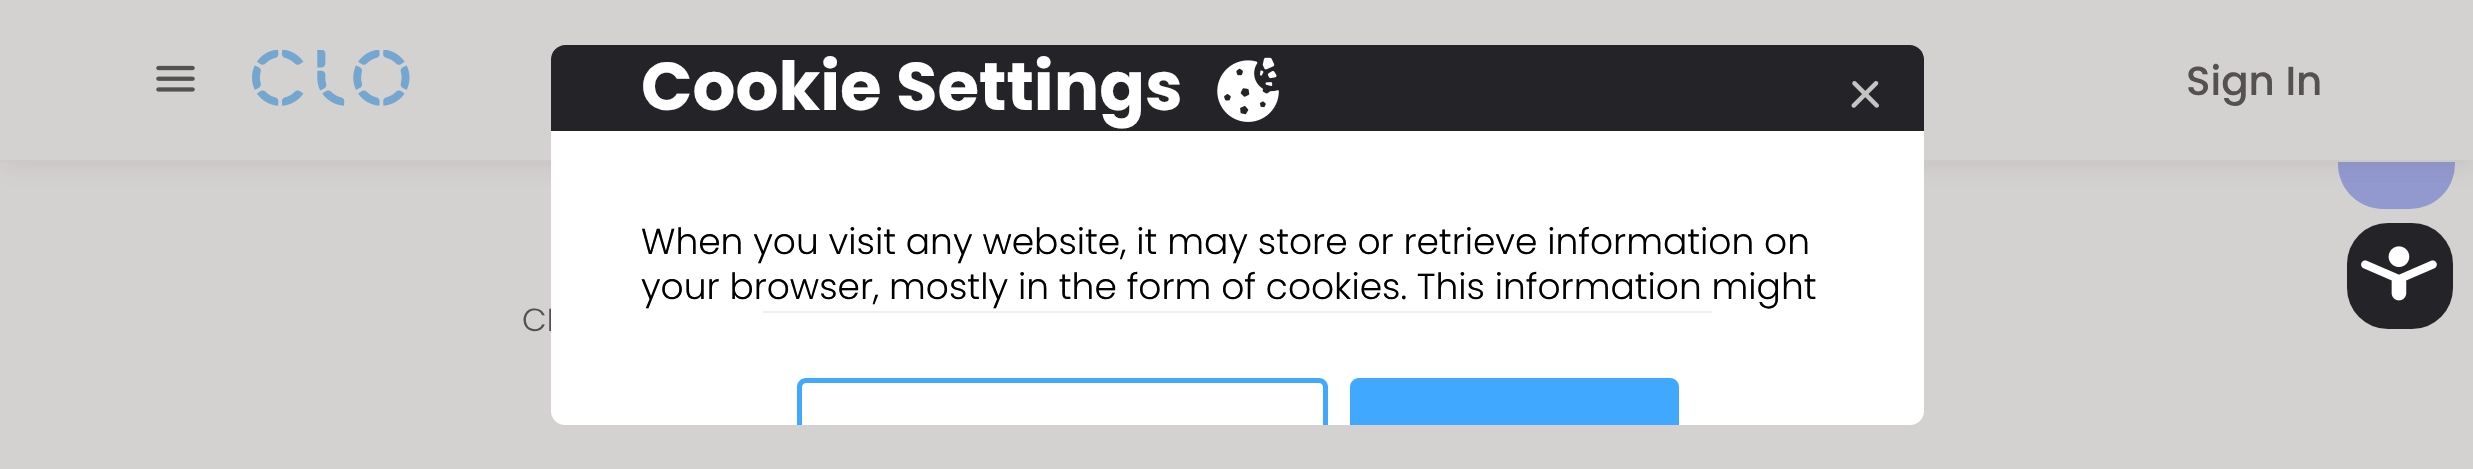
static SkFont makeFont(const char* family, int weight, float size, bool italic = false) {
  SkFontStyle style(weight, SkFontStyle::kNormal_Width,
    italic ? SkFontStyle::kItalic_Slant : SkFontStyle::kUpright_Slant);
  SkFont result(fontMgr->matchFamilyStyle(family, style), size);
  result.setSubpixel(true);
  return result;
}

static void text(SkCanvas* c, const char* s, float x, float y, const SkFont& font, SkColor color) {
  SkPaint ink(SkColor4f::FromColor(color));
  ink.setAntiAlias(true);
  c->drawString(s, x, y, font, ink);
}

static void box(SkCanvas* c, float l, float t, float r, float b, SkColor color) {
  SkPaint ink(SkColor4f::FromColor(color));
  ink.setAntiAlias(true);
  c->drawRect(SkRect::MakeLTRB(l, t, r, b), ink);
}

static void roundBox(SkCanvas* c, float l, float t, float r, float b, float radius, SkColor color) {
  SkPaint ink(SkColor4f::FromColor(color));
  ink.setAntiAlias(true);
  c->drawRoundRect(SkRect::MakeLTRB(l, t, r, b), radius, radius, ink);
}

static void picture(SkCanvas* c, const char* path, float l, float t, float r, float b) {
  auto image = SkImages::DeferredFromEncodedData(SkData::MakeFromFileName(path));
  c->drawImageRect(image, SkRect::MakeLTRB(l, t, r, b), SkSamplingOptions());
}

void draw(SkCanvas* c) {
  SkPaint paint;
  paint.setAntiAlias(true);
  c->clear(0xffd4d1d1);
  roundBox(c, 2338, 92, 2455, 209, 45, 0xff9299cf);
  paint.setColor(0x1a555151);
  paint.setMaskFilter(SkMaskFilter::MakeBlur(kNormal_SkBlurStyle, 11));
  c->drawRect(SkRect::MakeLTRB(2, 5, 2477, 167), paint);
  paint.setMaskFilter(nullptr);
  box(c, 0, 0, 2473, 160, 0xffd4d1d1);
  box(c, 0, 160, 2455, 162, 0xffccc9c9);
  SkFont face1 = makeFont("Poppins", 300, 32);
  text(c, "CL", 522, 331, face1, 0xff555151);
  roundBox(c, 551, 45, 1924, 425, 14, 0xffffffff);
  paint.setColor(0xff232328);
  c->drawPath(SkPathBuilder().moveTo(565, 45).lineTo(1910, 45).cubicTo(1917.5f, 45, 1924, 51.5f, 1924, 59).lineTo(1924, 131).lineTo(551, 131).lineTo(551, 59).cubicTo(551, 51.5f, 557.5f, 45, 565, 45).close().detach(), paint);
  SkFont face2 = makeFont("Poppins", 700, 67.5f);
  text(c, "Cookie Settings", 641, 110, face2, 0xffffffff);
  picture(c, "img_01.png", 1217, 57, 1279, 122);
  SkFont face3 = makeFont("Poppins", 300, 36);
  text(c, "When you visit any website, it may store or retrieve information on", 641, 254, face3, 0xff000000);
  text(c, "your browser, mostly in the form of cookies. This information might", 641, 299, face3, 0xff000000);
  box(c, 763, 311, 1712, 313, 0xffeeefef);
  paint.setColor(0xff40a9ff);
  c->drawPath(SkPathBuilder().moveTo(806, 378).cubicTo(801, 378, 797, 382, 797, 387).lineTo(797, 425).lineTo(802, 425).lineTo(802, 387).cubicTo(802, 385, 804, 383, 806, 383).lineTo(1319, 383).cubicTo(1321, 383, 1323, 385, 1323, 387).lineTo(1323, 425).lineTo(1328, 425).lineTo(1328, 387).cubicTo(1328, 382, 1324, 378, 1319, 378).close().detach(), paint);
  c->drawPath(SkPathBuilder().moveTo(1359, 378).lineTo(1670, 378).cubicTo(1675, 378, 1679, 382, 1679, 387).lineTo(1679, 425).lineTo(1350, 425).lineTo(1350, 387).cubicTo(1350, 382, 1354, 378, 1359, 378).close().detach(), paint);
  picture(c, "img_02.png", 1851, 81, 1879, 108);
  picture(c, "img_03.png", 156, 65, 195, 92);
  picture(c, "img_04.png", 252, 50, 410, 106);
  SkFont face4 = makeFont("Poppins", 500, 40.5f);
  text(c, "Sign In", 2186, 95, face4, 0xff555151);
  roundBox(c, 2347, 223, 2453, 329, 41, 0xff232328);
  picture(c, "img_05.png", 2361, 246, 2437, 301);
}
